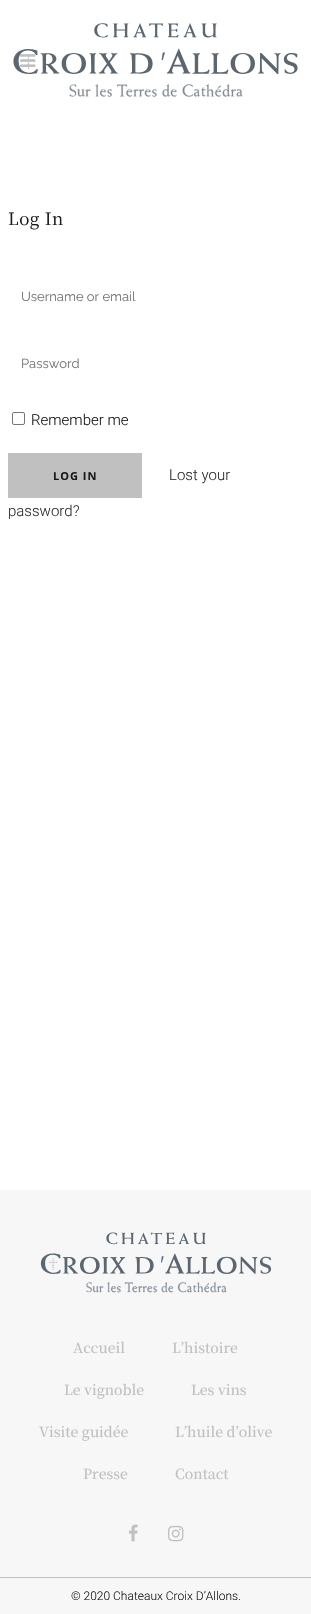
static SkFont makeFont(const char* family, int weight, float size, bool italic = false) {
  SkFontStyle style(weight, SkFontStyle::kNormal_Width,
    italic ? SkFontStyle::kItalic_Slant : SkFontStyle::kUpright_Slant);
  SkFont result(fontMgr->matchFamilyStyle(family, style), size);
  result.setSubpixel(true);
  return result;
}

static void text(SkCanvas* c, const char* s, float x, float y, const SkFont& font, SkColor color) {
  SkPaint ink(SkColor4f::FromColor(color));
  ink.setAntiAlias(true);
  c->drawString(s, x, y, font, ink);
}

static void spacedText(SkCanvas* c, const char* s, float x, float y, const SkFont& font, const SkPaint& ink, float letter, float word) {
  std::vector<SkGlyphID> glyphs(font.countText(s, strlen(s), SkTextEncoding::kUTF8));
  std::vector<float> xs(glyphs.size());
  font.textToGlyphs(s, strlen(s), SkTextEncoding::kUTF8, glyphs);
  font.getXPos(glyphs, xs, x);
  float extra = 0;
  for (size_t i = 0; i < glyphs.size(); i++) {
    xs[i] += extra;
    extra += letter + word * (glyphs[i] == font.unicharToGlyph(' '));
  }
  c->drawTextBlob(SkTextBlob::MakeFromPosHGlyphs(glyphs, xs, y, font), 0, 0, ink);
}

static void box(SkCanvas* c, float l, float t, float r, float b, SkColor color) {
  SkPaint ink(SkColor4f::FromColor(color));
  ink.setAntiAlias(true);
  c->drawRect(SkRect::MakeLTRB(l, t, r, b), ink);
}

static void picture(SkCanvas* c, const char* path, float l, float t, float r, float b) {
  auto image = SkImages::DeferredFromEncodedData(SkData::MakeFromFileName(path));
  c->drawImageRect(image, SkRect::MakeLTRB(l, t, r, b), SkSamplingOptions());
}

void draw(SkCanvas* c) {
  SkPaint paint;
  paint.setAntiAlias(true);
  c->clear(0xffffffff);
  picture(c, "img_01.png", 13, 23, 298, 97);
  picture(c, "img_02.png", 20, 54, 36, 67);
  SkFont face1 = makeFont("Noto Serif JP", 400, 17);
  paint.setColor(0xff191919);
  spacedText(c, "Log In", 8, 225, face1, paint, 0.5f, 0);
  SkFont face2 = makeFont("Raleway", 400, 13);
  text(c, "Username or email", 21, 301, face2, 0xff757575);
  text(c, "Password", 21, 368, face2, 0xff757575);
  paint.setStyle(SkPaint::kStroke_Style);
  paint.setStrokeWidth(1);
  paint.setColor(0xff767676);
  c->drawRoundRect(SkRect::MakeLTRB(12.5f, 412.5f, 24.5f, 424.5f), 1.5f, 1.5f, paint);
  SkFont face3 = makeFont("Roboto", 300, 15);
  text(c, "Remember me", 31, 425, face3, 0xff191919);
  box(c, 8, 453, 142, 498, 0xffc0c0c0);
  SkFont face4 = makeFont("Open Sans", 700, 11);
  paint.setStyle(SkPaint::kFill_Style);
  paint.setColor(0xff191919);
  spacedText(c, "LOG IN", 53, 480, face4, paint, 1, 0);
  text(c, "Lost your", 169, 480, face3, 0xff303030);
  text(c, "password?", 8, 516, face3, 0xff303030);
  box(c, 0, 1190, 311, 1577, 0xfff7f7f7);
  picture(c, "img_03.png", 40, 1232, 272, 1293);
  SkFont face5 = makeFont("Noto Serif JP", 500, 14);
  text(c, "Accueil", 73, 1353, face5, 0xffc0c0c0);
  text(c, "L’histoire", 172, 1353, face5, 0xffc0c0c0);
  text(c, "Le vignoble", 64, 1395, face5, 0xffc0c0c0);
  text(c, "Les vins", 191, 1395, face5, 0xffc0c0c0);
  text(c, "Visite guidée", 39, 1437, face5, 0xffc0c0c0);
  text(c, "L’huile d’olive", 175, 1437, face5, 0xffc0c0c0);
  text(c, "Presse", 83, 1479, face5, 0xffc0c0c0);
  text(c, "Contact", 175, 1479, face5, 0xffc0c0c0);
  picture(c, "img_04.png", 129, 1524, 138, 1542);
  picture(c, "img_05.png", 168, 1525, 184, 1542);
  box(c, 0, 1578, 311, 1614, 0xfff7f7f7);
  box(c, 0, 1577, 311, 1578, 0xffc0c0c0);
  SkFont face6 = makeFont("Roboto", 300, 12);
  text(c, "© 2020 Chateaux Croix D’Allons.", 71, 1600, face6, 0xff191919);
}
